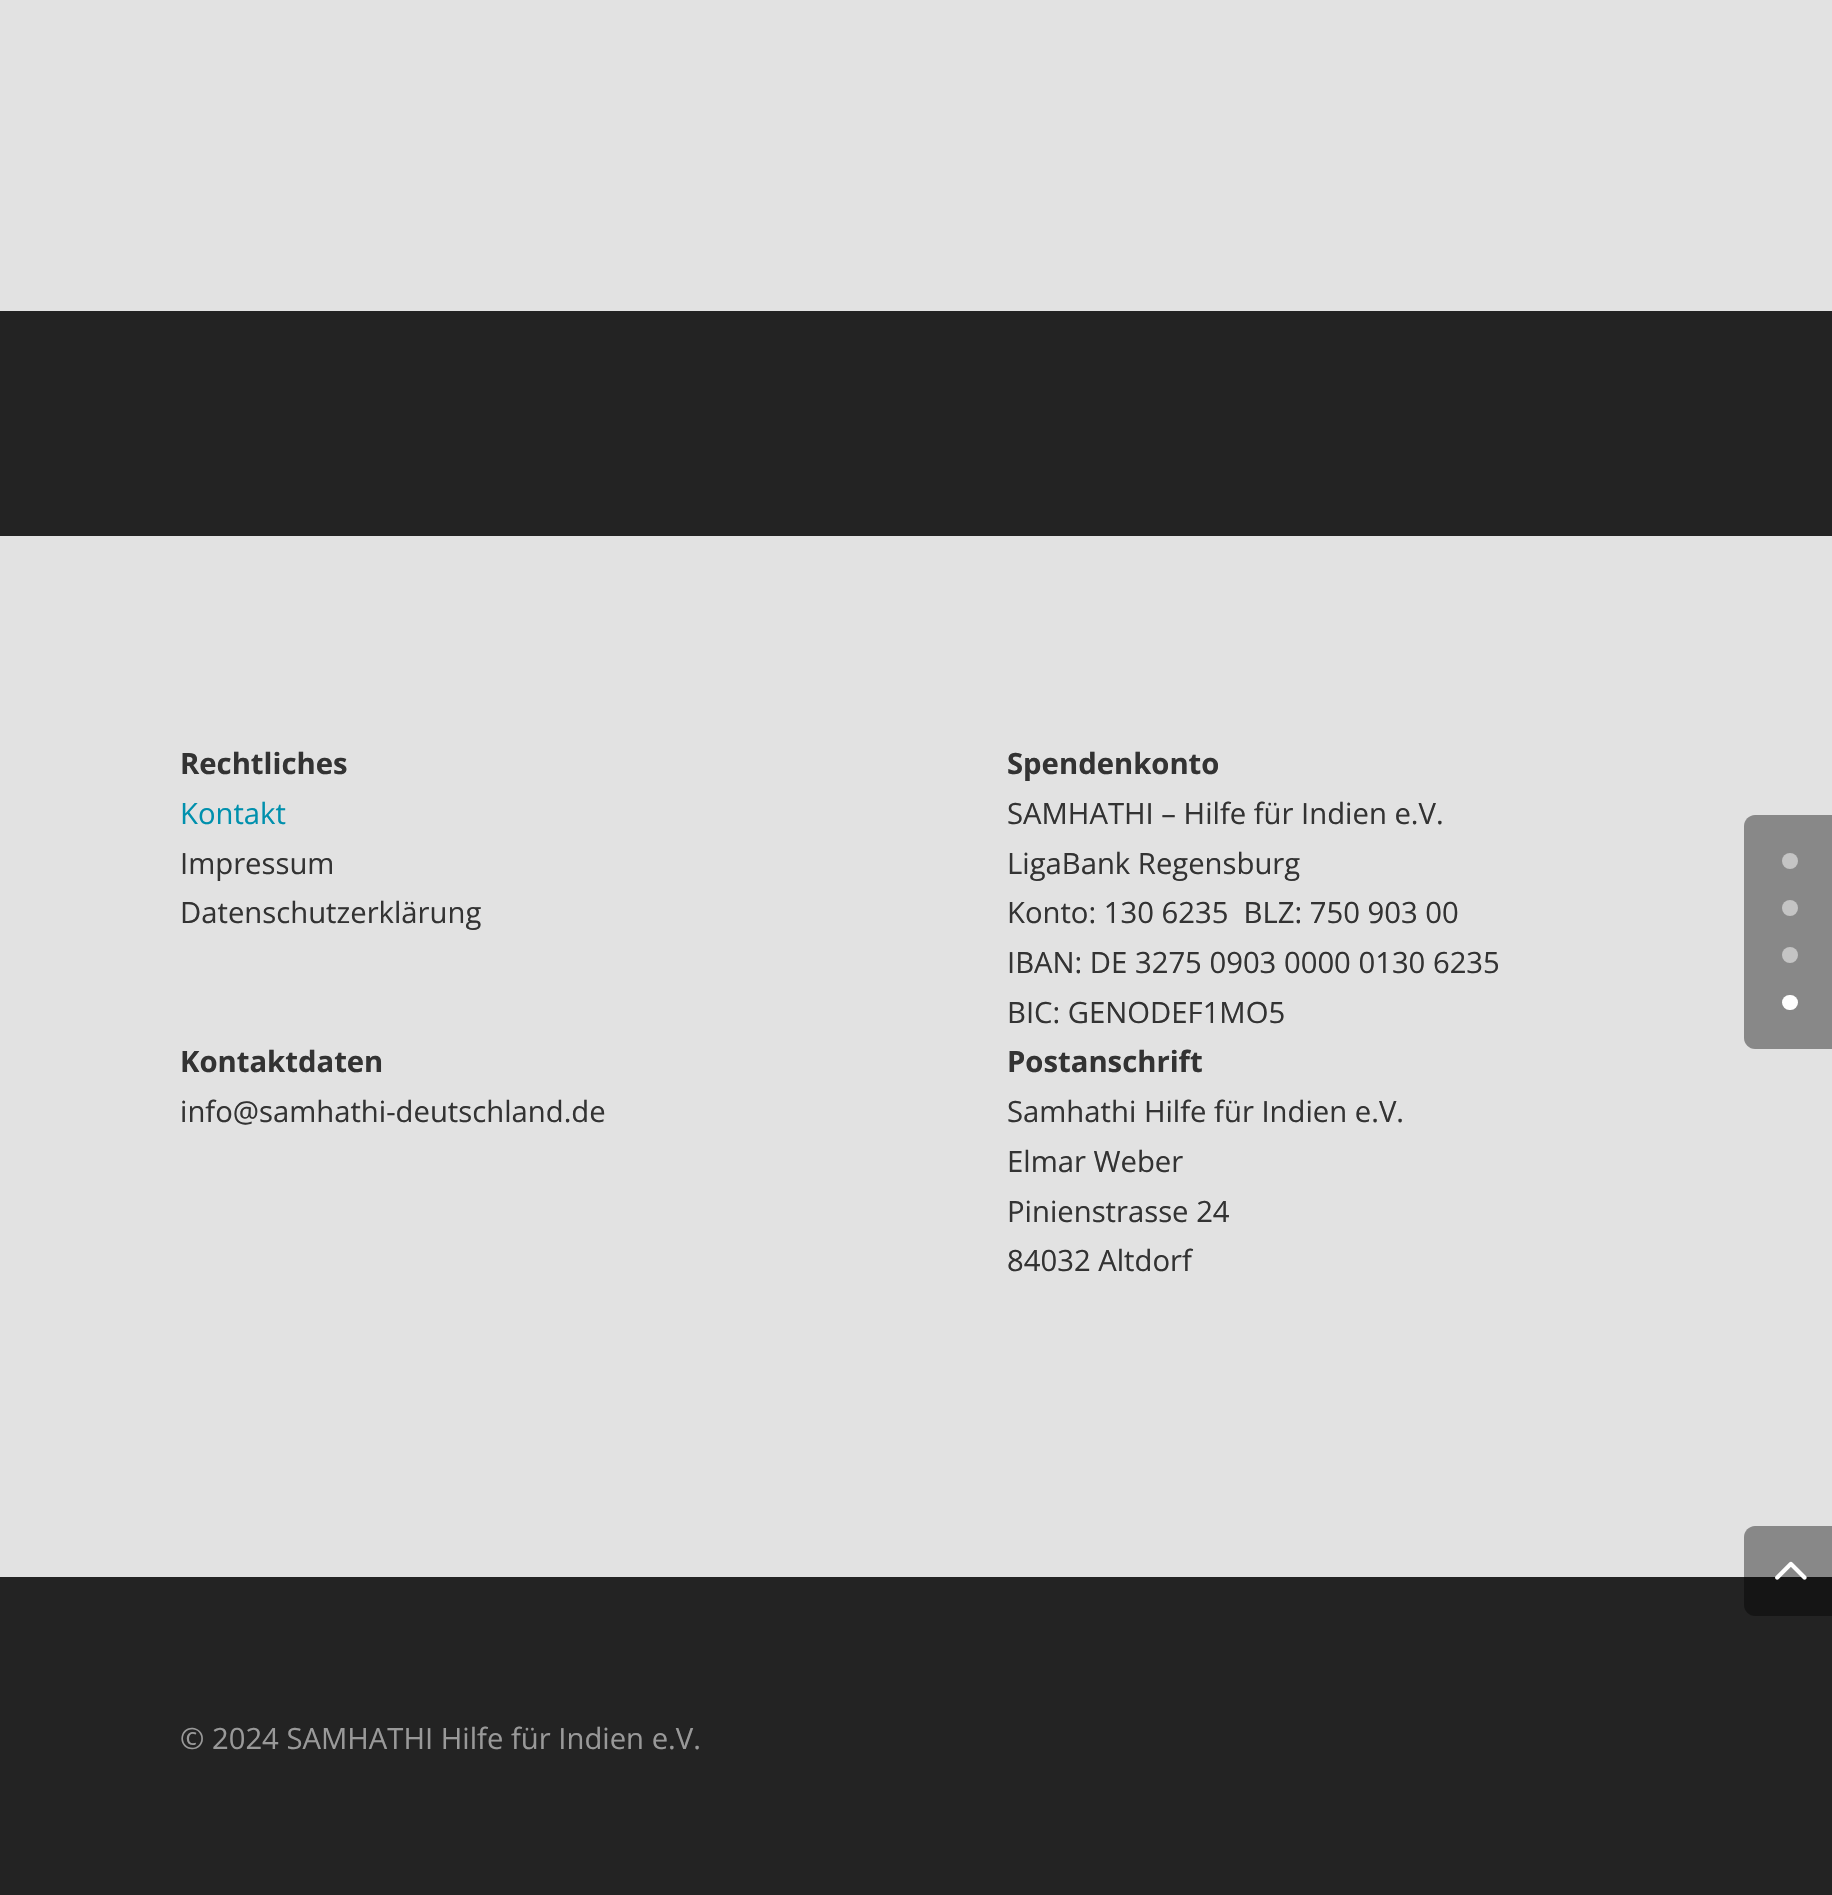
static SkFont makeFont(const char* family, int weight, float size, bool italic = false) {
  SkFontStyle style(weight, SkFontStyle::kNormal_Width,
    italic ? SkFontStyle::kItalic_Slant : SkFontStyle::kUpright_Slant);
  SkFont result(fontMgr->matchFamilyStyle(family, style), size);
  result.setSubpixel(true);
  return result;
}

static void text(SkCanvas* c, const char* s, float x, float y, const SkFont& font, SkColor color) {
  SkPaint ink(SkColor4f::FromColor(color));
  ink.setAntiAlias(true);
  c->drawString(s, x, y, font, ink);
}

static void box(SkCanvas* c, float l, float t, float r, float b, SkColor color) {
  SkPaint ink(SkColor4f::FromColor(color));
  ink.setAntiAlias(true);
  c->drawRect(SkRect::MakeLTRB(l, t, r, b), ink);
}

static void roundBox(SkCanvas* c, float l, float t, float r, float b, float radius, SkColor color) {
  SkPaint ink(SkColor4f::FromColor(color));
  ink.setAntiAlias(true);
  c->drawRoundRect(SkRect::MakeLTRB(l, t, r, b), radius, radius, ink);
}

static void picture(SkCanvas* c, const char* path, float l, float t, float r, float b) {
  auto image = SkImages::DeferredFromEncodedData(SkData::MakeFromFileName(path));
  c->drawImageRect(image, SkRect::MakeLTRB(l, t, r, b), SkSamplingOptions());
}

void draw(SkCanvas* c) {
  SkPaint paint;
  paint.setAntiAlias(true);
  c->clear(0xffe2e2e2);
  box(c, 0, 311, 1832, 536, 0xff232323);
  paint.setColor(0xff888888);
  c->drawPath(SkPathBuilder().moveTo(1755, 815).lineTo(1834, 815).lineTo(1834, 1049).lineTo(1755, 1049).cubicTo(1749, 1049, 1744, 1044, 1744, 1038).lineTo(1744, 826).cubicTo(1744, 820, 1749, 815, 1755, 815).close().detach(), paint);
  paint.setColor(0xffc4c4c4);
  c->drawCircle(1790, 861, 8, paint);
  c->drawCircle(1790, 908, 8, paint);
  c->drawCircle(1790, 955, 8, paint);
  roundBox(c, 1782, 995, 1798, 1010, 7.5f, 0xffffffff);
  SkFont face1 = makeFont("Open Sans", 700, 29.25f);
  text(c, "Rechtliches", 180, 774, face1, 0xff333333);
  SkFont face2 = makeFont("Open Sans", 400, 29.25f);
  text(c, "Kontakt", 180, 824, face2, 0xff0090ad);
  text(c, "Impressum", 180, 874, face2, 0xff333333);
  text(c, "Datenschutzerklärung", 180, 923, face2, 0xff333333);
  text(c, "Spendenkonto", 1007, 774, face1, 0xff333333);
  text(c, "SAMHATHI – Hilfe für Indien e.V.", 1007, 824, face2, 0xff333333);
  text(c, "LigaBank Regensburg", 1007, 874, face2, 0xff333333);
  text(c, "Konto: 130 6235  BLZ: 750 903 00", 1007, 923, face2, 0xff333333);
  text(c, "IBAN: DE 3275 0903 0000 0130 6235", 1007, 973, face2, 0xff333333);
  text(c, "BIC: GENODEF1MO5", 1007, 1023, face2, 0xff333333);
  text(c, "Kontaktdaten", 180, 1072, face1, 0xff333333);
  text(c, "info@samhathi-deutschland.de", 180, 1122, face2, 0xff333333);
  text(c, "Postanschrift", 1007, 1072, face1, 0xff333333);
  text(c, "Samhathi Hilfe für Indien e.V.", 1007, 1122, face2, 0xff333333);
  text(c, "Elmar Weber", 1007, 1172, face2, 0xff333333);
  text(c, "Pinienstrasse 24", 1007, 1222, face2, 0xff333333);
  text(c, "84032 Altdorf", 1007, 1271, face2, 0xff333333);
  box(c, 0, 1577, 1832, 1895, 0xff232323);
  text(c, "© 2024 SAMHATHI Hilfe für Indien e.V.", 180, 1749, face2, 0xff999999);
  paint.setColor(0x66000000);
  c->drawPath(SkPathBuilder().moveTo(1755, 1526).lineTo(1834, 1526).lineTo(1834, 1616).lineTo(1755, 1616).cubicTo(1749, 1616, 1744, 1611, 1744, 1605).lineTo(1744, 1537).cubicTo(1744, 1531, 1749, 1526, 1755, 1526).close().detach(), paint);
  picture(c, "img_01.png", 1775, 1561, 1807, 1580);
}
